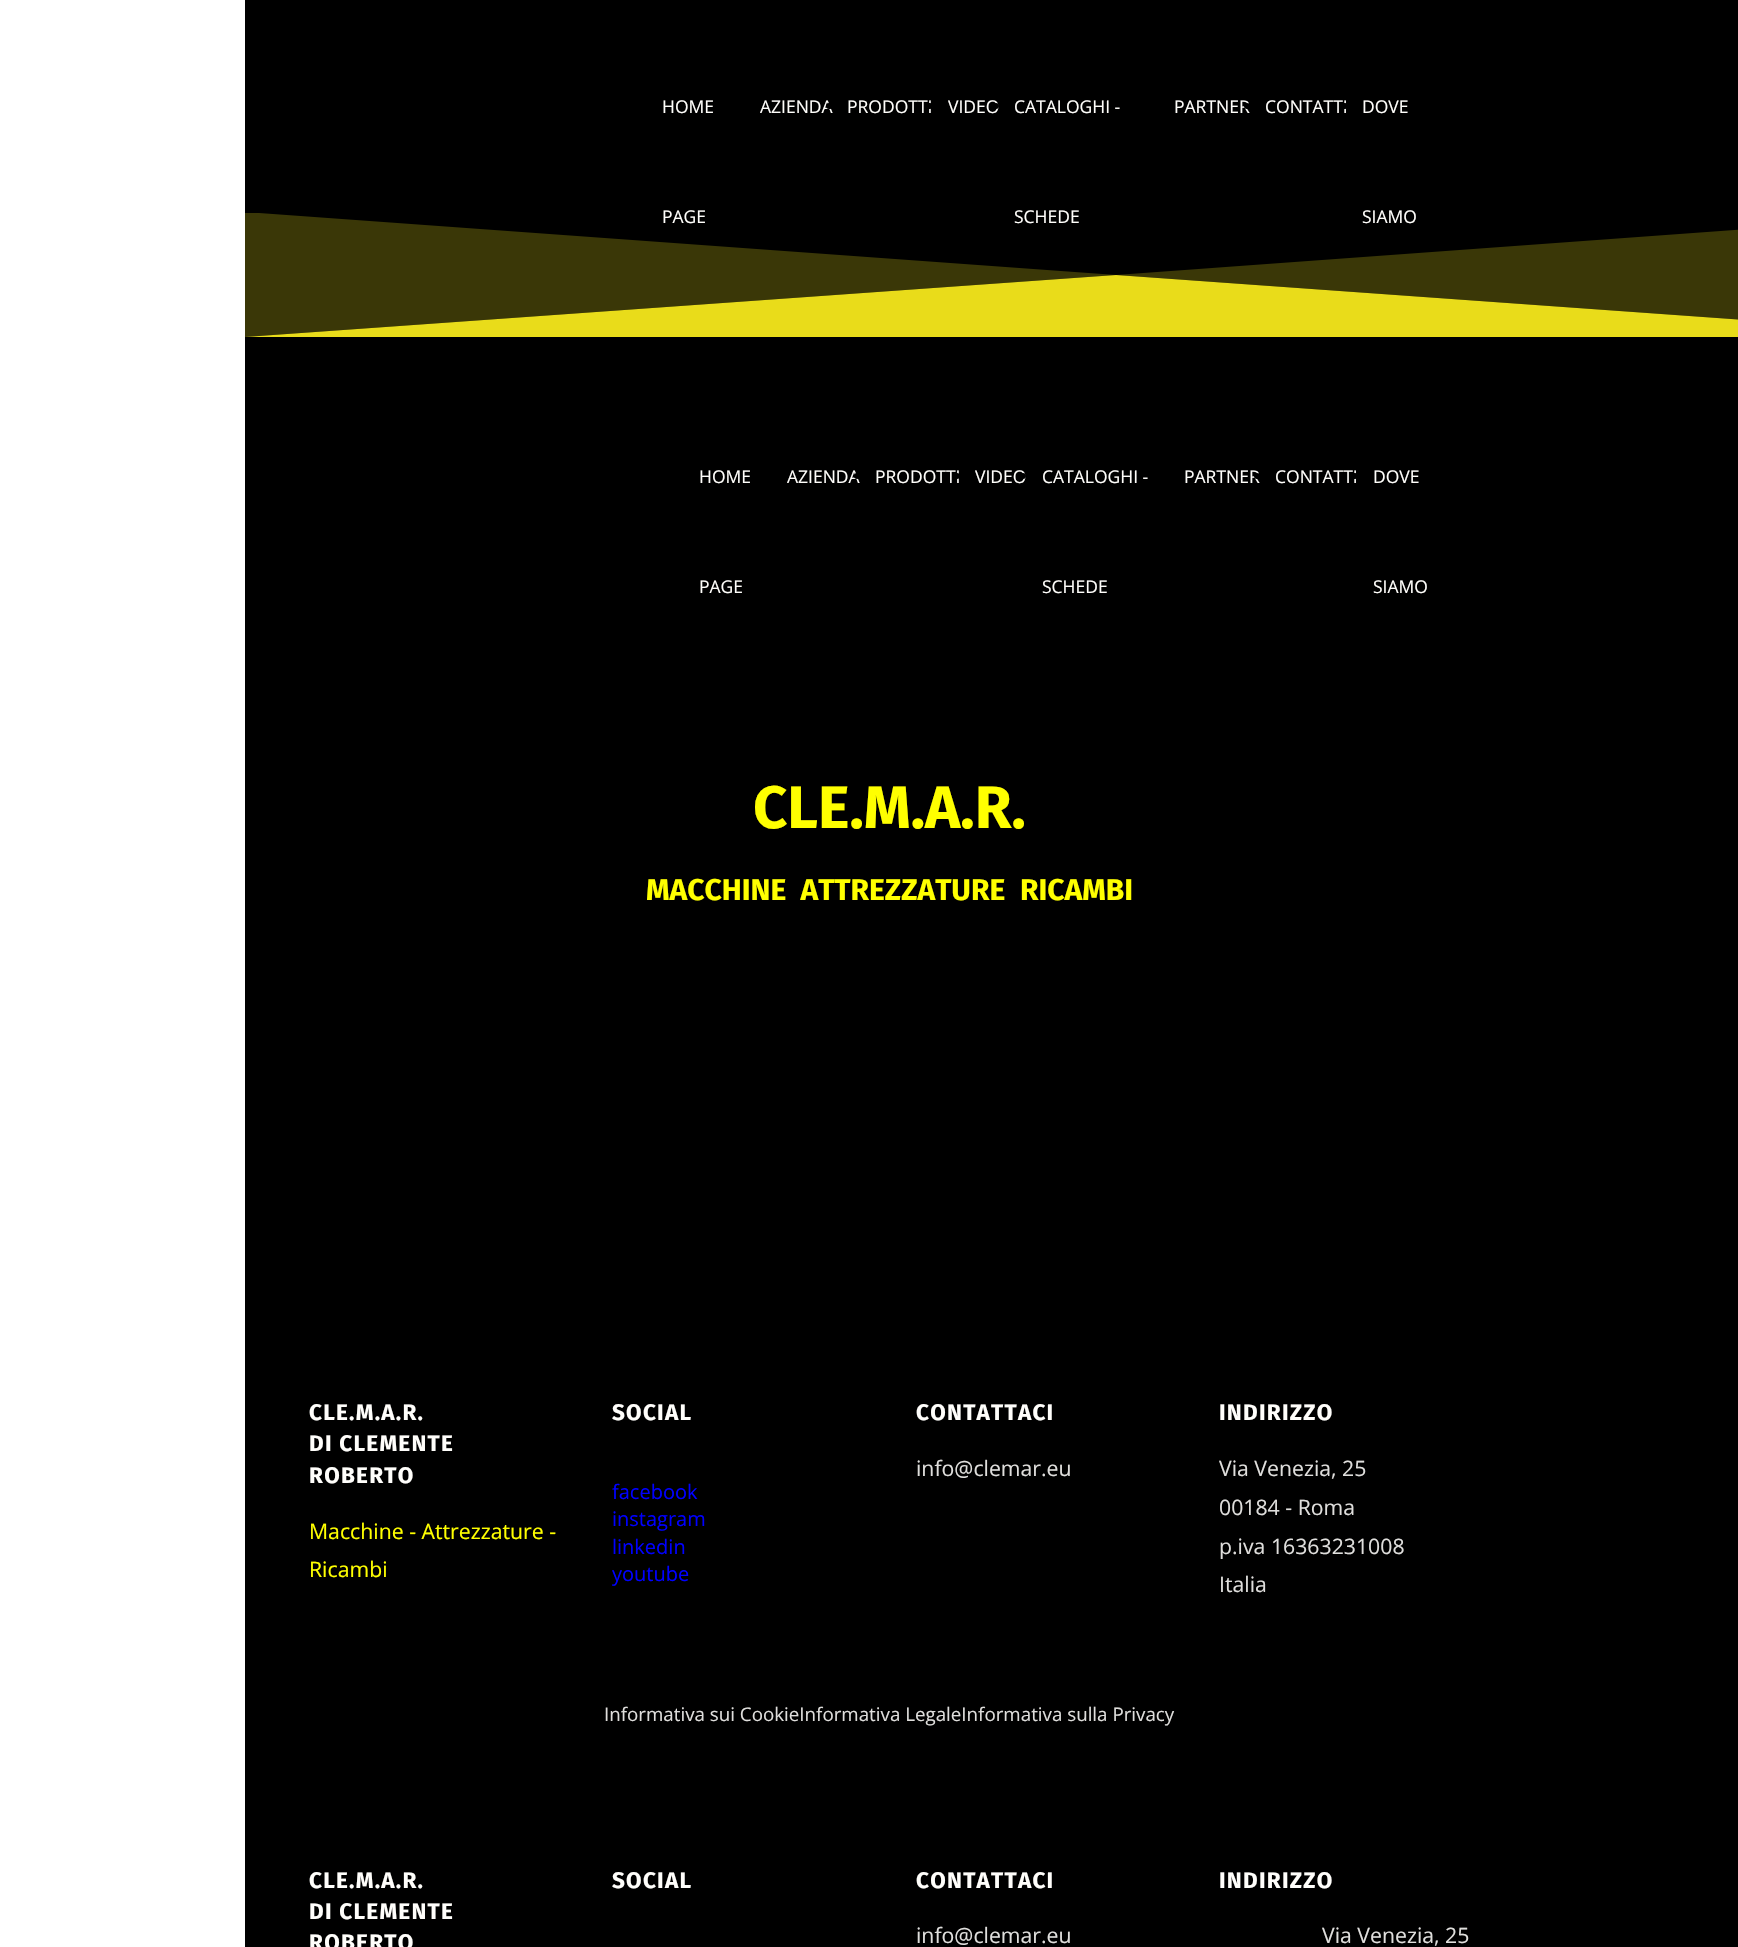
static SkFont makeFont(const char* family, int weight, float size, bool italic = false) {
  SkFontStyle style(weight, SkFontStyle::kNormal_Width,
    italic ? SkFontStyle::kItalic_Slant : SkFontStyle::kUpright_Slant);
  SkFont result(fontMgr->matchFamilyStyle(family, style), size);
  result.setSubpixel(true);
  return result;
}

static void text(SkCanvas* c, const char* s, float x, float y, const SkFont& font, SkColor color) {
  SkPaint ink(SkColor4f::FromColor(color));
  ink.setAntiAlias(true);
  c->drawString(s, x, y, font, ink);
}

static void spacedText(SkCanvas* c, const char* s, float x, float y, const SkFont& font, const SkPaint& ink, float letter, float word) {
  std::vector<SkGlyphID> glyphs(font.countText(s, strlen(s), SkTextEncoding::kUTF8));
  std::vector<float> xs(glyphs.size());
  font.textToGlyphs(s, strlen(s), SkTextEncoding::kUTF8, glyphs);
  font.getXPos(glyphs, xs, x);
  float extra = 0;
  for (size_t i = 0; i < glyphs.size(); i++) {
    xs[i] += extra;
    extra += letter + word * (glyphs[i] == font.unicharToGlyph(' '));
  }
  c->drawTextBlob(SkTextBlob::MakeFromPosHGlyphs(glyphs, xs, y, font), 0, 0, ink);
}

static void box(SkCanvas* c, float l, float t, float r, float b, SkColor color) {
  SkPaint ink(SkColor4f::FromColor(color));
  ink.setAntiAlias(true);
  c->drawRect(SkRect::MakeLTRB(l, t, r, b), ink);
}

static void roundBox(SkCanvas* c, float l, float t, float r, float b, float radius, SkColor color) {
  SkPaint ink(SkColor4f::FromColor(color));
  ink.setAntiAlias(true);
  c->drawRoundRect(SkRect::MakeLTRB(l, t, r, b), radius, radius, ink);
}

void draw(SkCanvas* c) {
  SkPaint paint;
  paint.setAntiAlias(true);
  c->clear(0xffffffff);
  box(c, 245, 0, 1738, 1298, 0xff000000);
  SkFont face1 = makeFont("Open Sans", 400, 17.5f);
  text(c, "HOME", 662, 113, face1, 0xfffffefb);
  text(c, "PAGE", 662, 223, face1, 0xfffffefb);
  text(c, "AZIENDA", 760, 113, face1, 0xfffffefb);
  roundBox(c, 826, 103, 833, 109, 3, 0xff000000);
  text(c, "PRODOTTI", 847, 113, face1, 0xfffffefb);
  roundBox(c, 926, 103, 933, 109, 3, 0xff000000);
  text(c, "VIDEO", 948, 113, face1, 0xfffffefb);
  paint.setColor(0xff000000);
  c->drawCircle(996, 106, 3, paint);
  text(c, "CATALOGHI -", 1014, 113, face1, 0xfffffefb);
  text(c, "SCHEDE", 1014, 223, face1, 0xfffffefb);
  text(c, "PARTNER", 1174, 113, face1, 0xfffffefb);
  c->drawCircle(1247, 106, 3, paint);
  text(c, "CONTATTI", 1265, 113, face1, 0xfffffefb);
  roundBox(c, 1341, 103, 1348, 109, 3, 0xff000000);
  text(c, "DOVE", 1362, 113, face1, 0xfffffefb);
  text(c, "SIAMO", 1362, 223, face1, 0xfffffefb);
  paint.setColor(0xffe9dc1a);
  c->drawPath(SkPathBuilder().moveTo(1116, 275).lineTo(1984, 337).lineTo(245, 337).close().detach(), paint);
  c->save();
  c->clipRect(SkRect::MakeLTRB(245, 213, 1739, 338));
  paint.setColor(0x40e9dc1a);
  c->drawPath(SkPathBuilder().moveTo(1116, 275).lineTo(245, 337).lineTo(245, 212).close().detach(), paint);
  c->restore();
  c->drawPath(SkPathBuilder().moveTo(1116, 275).lineTo(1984, 337).lineTo(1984, 212).close().detach(), paint);
  text(c, "HOME", 699, 483, face1, 0xfffffefb);
  text(c, "PAGE", 699, 593, face1, 0xfffffefb);
  text(c, "AZIENDA", 787, 483, face1, 0xfffffefb);
  paint.setColor(0xff000000);
  c->drawCircle(857, 476, 3, paint);
  text(c, "PRODOTTI", 875, 483, face1, 0xfffffefb);
  c->drawCircle(957, 476, 3, paint);
  text(c, "VIDEO", 975, 483, face1, 0xfffffefb);
  c->drawCircle(1023, 476, 3, paint);
  text(c, "CATALOGHI -", 1042, 483, face1, 0xfffffefb);
  text(c, "SCHEDE", 1042, 593, face1, 0xfffffefb);
  text(c, "PARTNER", 1184, 483, face1, 0xfffffefb);
  c->drawCircle(1257, 476, 3, paint);
  text(c, "CONTATTI", 1275, 483, face1, 0xfffffefb);
  roundBox(c, 1351, 473, 1358, 479, 3, 0xff000000);
  text(c, "DOVE", 1373, 483, face1, 0xfffffefb);
  text(c, "SIAMO", 1373, 593, face1, 0xfffffefb);
  SkFont face2 = makeFont("Fira Sans", 700, 59.75f);
  text(c, "CLE.M.A.R.", 753, 828, face2, 0xffffff00);
  SkFont face3 = makeFont("Fira Sans", 700, 30);
  text(c, "MACCHINE  ATTREZZATURE", 646, 900, face3, 0xffffff00);
  text(c, "RICAMBI", 1020, 900, face3, 0xffffff00);
  box(c, 245, 1298, 1738, 1947, 0xff000000);
  SkFont face4 = makeFont("Fira Sans", 700, 22.5f);
  paint.setColor(0xfffffefb);
  spacedText(c, "CLE.M.A.R.", 309, 1420, face4, paint, 1.25f, 0);
  spacedText(c, "DI CLEMENTE", 309, 1451, face4, paint, 1.25f, 0);
  spacedText(c, "ROBERTO", 309, 1483, face4, paint, 1.25f, 0);
  spacedText(c, "SOCIAL", 612, 1420, face4, paint, 1.25f, 0);
  spacedText(c, "CONTATTACI", 916, 1420, face4, paint, 1.25f, 0);
  spacedText(c, "INDIRIZZO", 1219, 1420, face4, paint, 1.25f, 0);
  SkFont face5 = makeFont("Open Sans", 400, 21.25f);
  text(c, "Macchine - Attrezzature -", 309, 1539, face5, 0xffffff00);
  text(c, "Ricambi", 309, 1577, face5, 0xffffff00);
  SkFont face6 = makeFont("Open Sans", 400, 20);
  text(c, "facebook", 612, 1499, face6, 0xff0000ff);
  text(c, "instagram", 612, 1526, face6, 0xff0000ff);
  text(c, "linkedin", 612, 1554, face6, 0xff0000ff);
  text(c, "youtube", 612, 1581, face6, 0xff0000ff);
  text(c, "info@clemar.eu", 916, 1476, face5, 0xffdfdedc);
  text(c, "Via Venezia, 25", 1219, 1476, face5, 0xffdfdedc);
  text(c, "00184 - Roma", 1219, 1515, face5, 0xffdfdedc);
  text(c, "p.iva 16363231008", 1219, 1554, face5, 0xffdfdedc);
  text(c, "Italia", 1219, 1592, face5, 0xffdfdedc);
  SkFont face7 = makeFont("Open Sans", 400, 18.75f);
  text(c, "Informativa sui CookieInformativa LegaleInformativa sulla Privacy", 604, 1721, face7, 0xffdfdedc);
  spacedText(c, "CLE.M.A.R.", 309, 1888, face4, paint, 1.25f, 0);
  spacedText(c, "DI CLEMENTE", 309, 1919, face4, paint, 1.25f, 0);
  spacedText(c, "ROBERTO", 309, 1950, face4, paint, 1.25f, 0);
  spacedText(c, "SOCIAL", 612, 1888, face4, paint, 1.25f, 0);
  spacedText(c, "CONTATTACI", 916, 1888, face4, paint, 1.25f, 0);
  spacedText(c, "INDIRIZZO", 1219, 1888, face4, paint, 1.25f, 0);
  text(c, "info@clemar.eu", 916, 1943, face5, 0xffdfdedc);
  text(c, "Via Venezia, 25", 1322, 1943, face5, 0xffdfdedc);
}
